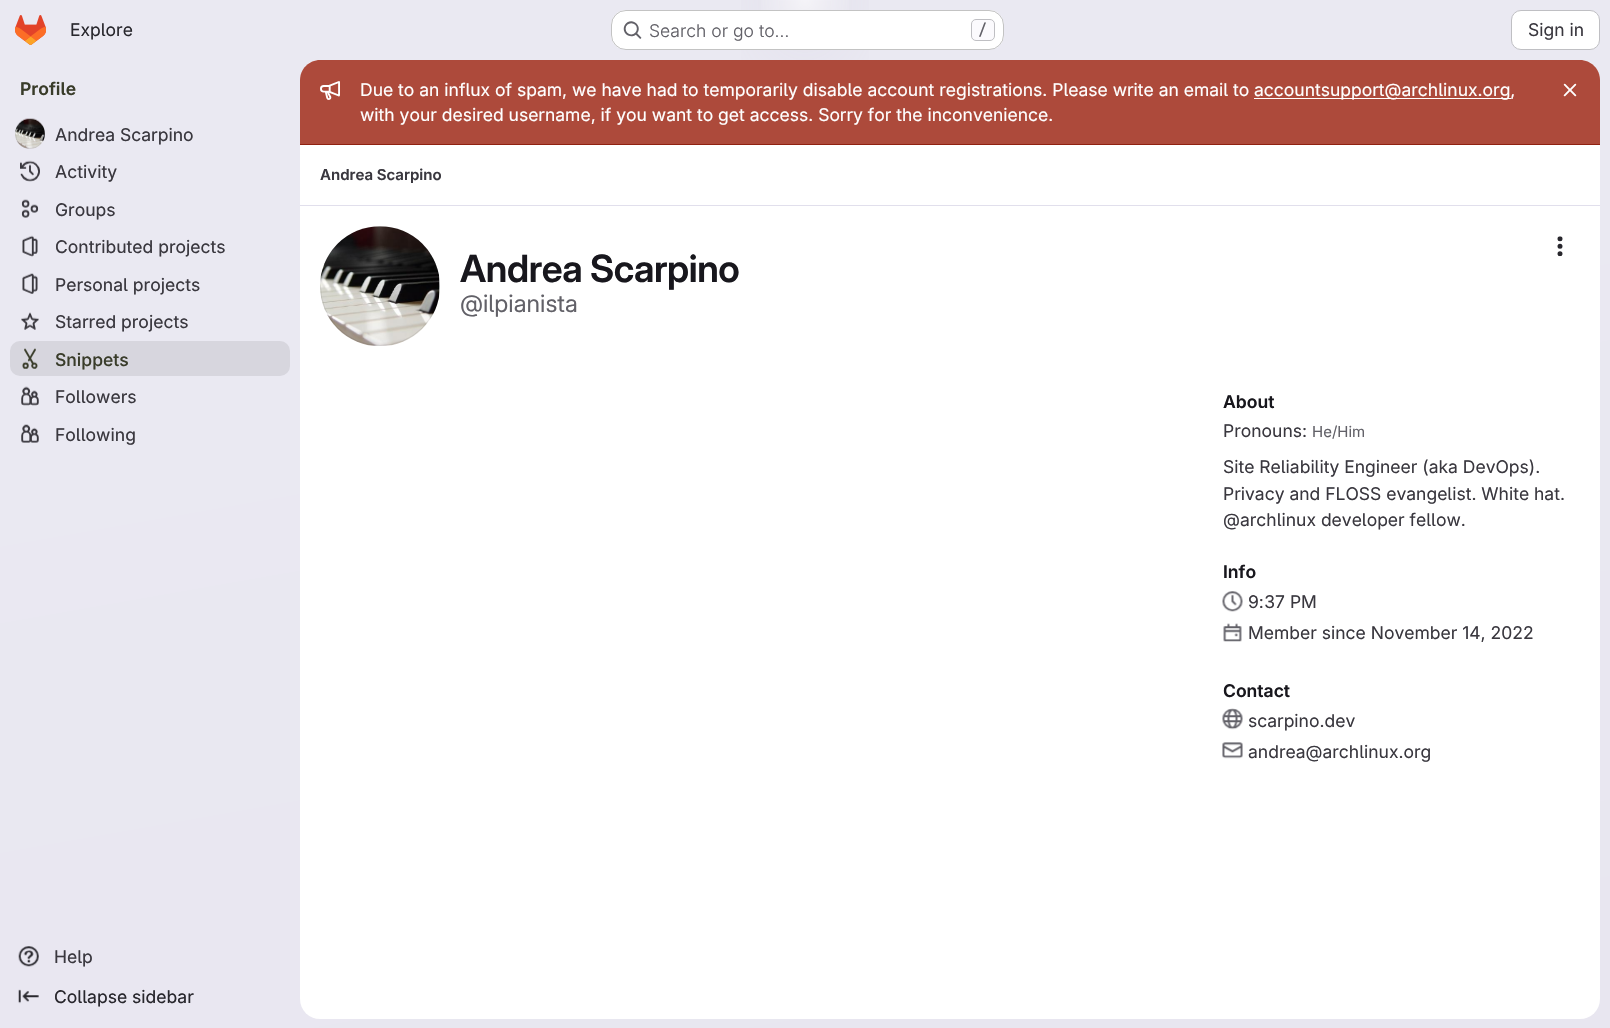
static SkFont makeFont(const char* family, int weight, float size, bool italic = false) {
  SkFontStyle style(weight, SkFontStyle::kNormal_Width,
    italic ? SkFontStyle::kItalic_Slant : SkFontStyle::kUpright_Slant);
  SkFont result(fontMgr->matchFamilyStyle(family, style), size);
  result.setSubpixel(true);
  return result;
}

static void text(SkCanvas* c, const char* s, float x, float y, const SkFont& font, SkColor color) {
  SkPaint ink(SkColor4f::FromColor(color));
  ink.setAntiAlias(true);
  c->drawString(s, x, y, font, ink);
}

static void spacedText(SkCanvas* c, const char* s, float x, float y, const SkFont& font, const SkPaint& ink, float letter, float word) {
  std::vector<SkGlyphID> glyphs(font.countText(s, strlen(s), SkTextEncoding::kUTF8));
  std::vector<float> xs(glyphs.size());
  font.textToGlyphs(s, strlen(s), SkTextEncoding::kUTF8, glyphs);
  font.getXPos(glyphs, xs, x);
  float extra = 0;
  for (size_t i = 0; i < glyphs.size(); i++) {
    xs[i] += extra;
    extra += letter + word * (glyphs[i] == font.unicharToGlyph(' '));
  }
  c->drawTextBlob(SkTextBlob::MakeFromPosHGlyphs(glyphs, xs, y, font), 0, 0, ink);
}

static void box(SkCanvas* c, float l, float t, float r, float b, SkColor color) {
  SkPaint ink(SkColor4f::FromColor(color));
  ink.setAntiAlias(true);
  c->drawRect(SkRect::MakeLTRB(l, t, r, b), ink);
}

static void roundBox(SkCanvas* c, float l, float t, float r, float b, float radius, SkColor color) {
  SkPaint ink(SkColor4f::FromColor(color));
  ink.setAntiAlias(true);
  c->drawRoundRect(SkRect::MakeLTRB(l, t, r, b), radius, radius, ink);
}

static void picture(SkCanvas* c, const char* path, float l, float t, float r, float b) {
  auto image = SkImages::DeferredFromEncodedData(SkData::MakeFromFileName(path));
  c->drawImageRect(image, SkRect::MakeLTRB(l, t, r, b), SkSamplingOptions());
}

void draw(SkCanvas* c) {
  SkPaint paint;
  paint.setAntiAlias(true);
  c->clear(0xffffffff);
  {
    const SkColor colors[] = {0xffe8e6f0, 0xffeae9f2};
    const float stops[] = {0, 0.7f};
    const SkPoint ends[] = {{917, 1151}, {693, -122}};
    paint.setShader(SkGradientShader::MakeLinear(ends, colors, stops, 2, SkTileMode::kClamp));
    paint.setAlpha(255);
  }
  c->drawRect(SkRect::MakeLTRB(0, 0, 1610, 1028), paint);
  {
    const SkColor colors[] = {0xffe4e2ed, 0x00e4e2ed};
    const float stops[] = {0, 0.11f};
    SkMatrix m = SkMatrix::Translate(805, 0).preScale(805, 1029);
    paint.setShader(SkGradientShader::MakeRadial({0, 0}, 1, colors, stops, 2, SkTileMode::kClamp, 0, &m));
    paint.setAlpha(255);
  }
  c->drawRect(SkRect::MakeLTRB(741, 0, 869, 60), paint);
  {
    const SkColor colors[] = {0xffe4e2ec, 0x00e4e2ec};
    const float stops[] = {0, 0.08f};
    SkMatrix m = SkMatrix::Translate(805, 0).preScale(805, 1029);
    paint.setShader(SkGradientShader::MakeRadial({0, 0}, 1, colors, stops, 2, SkTileMode::kClamp, 0, &m));
    paint.setAlpha(255);
  }
  c->drawRect(SkRect::MakeLTRB(779, 1, 831, 20), paint);
  {
    const SkColor colors[] = {0x99ffffff, 0x00ffffff};
    const float stops[] = {0, 0.04f};
    paint.setShader(SkGradientShader::MakeRadial({805, 0}, 1306, colors, stops, 2, SkTileMode::kClamp));
    paint.setAlpha(255);
  }
  c->drawRect(SkRect::MakeLTRB(761, 0, 849, 10), paint);
  picture(c, "img_01.png", 15, 15, 46, 45);
  SkFont face1 = makeFont("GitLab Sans", 400, 17.5f);
  text(c, "Explore", 70, 36, face1, 0xff28272d);
  roundBox(c, 611, 10, 1004, 50, 15, 0xffffffff);
  paint.setStyle(SkPaint::kStroke_Style);
  paint.setStrokeWidth(1);
  paint.setShader(nullptr);
  paint.setColor(0x3d050506);
  c->drawRoundRect(SkRect::MakeLTRB(611.5f, 10.5f, 1003.5f, 49.5f), 14.5f, 14.5f, paint);
  picture(c, "img_02.png", 623, 21, 642, 39);
  SkFont face2 = makeFont("GitLab Sans", 300, 17.5f);
  text(c, "Search or go to…", 649, 37, face2, 0xff626168);
  paint.setStyle(SkPaint::kFill_Style);
  paint.setColor(0xfffbfafd);
  c->drawRoundRect(SkRect::MakeLTRB(971.5f, 19.5f, 994.5f, 40.5f), 4.5f, 4.5f, paint);
  paint.setStyle(SkPaint::kStroke_Style);
  paint.setColor(0xffbfbfc3);
  c->drawRoundRect(SkRect::MakeLTRB(971.5f, 19.5f, 994.5f, 40.5f), 4.5f, 4.5f, paint);
  SkFont face3 = makeFont("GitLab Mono", 500, 15);
  text(c, "/", 978, 35, face3, 0xff626168);
  paint.setStyle(SkPaint::kFill_Style);
  paint.setColor(0xffffffff);
  c->drawRoundRect(SkRect::MakeLTRB(1511.5f, 10.5f, 1599.5f, 49.5f), 9.5f, 9.5f, paint);
  paint.setStyle(SkPaint::kStroke_Style);
  paint.setColor(0xffbfbfc3);
  c->drawRoundRect(SkRect::MakeLTRB(1511.5f, 10.5f, 1599.5f, 49.5f), 9.5f, 9.5f, paint);
  text(c, "Sign in", 1528, 36, face1, 0xff3a383f);
  SkFont face4 = makeFont("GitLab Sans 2", 600, 17.5f);
  text(c, "Profile", 20, 95, face4, 0xff393c2a);
  picture(c, "img_03.png", 15, 118, 45, 149);
  paint.setColor(0x14050506);
  c->drawCircle(30, 134, 14.5f, paint);
  SkFont face5 = makeFont("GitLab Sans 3", 400, 17.5f);
  text(c, "Andrea Scarpino", 55, 141, face5, 0xff3a383f);
  picture(c, "img_04.png", 20, 160, 40, 182);
  text(c, "Activity", 55, 178, face5, 0xff3a383f);
  picture(c, "img_05.png", 21, 199, 39, 218);
  text(c, "Groups", 55, 216, face5, 0xff3a383f);
  picture(c, "img_06.png", 22, 235, 38, 257);
  text(c, "Contributed projects", 55, 253, face5, 0xff3a383f);
  picture(c, "img_07.png", 22, 273, 38, 294);
  text(c, "Personal projects", 55, 291, face5, 0xff3a383f);
  picture(c, "img_08.png", 21, 312, 39, 330);
  text(c, "Starred projects", 55, 328, face5, 0xff3a383f);
  roundBox(c, 10, 341, 290, 376, 10, 0xffd7d6de);
  picture(c, "img_09.png", 22, 348, 38, 369);
  SkFont face6 = makeFont("GitLab Sans", 500, 17.5f);
  text(c, "Snippets", 55, 366, face6, 0xff393c2a);
  picture(c, "img_10.png", 21, 386, 39, 406);
  text(c, "Followers", 55, 403, face5, 0xff3a383f);
  picture(c, "img_11.png", 21, 424, 39, 443);
  text(c, "Following", 55, 441, face5, 0xff3a383f);
  picture(c, "img_12.png", 18, 946, 39, 967);
  text(c, "Help", 54, 963, face5, 0xff3a383f);
  picture(c, "img_13.png", 18, 989, 39, 1004);
  text(c, "Collapse sidebar", 54, 1003, face5, 0xff28272d);
  roundBox(c, 300, 60, 1600, 1019, 20, 0xffffffff);
  paint.setStyle(SkPaint::kFill_Style);
  paint.setColor(0xffad4a3b);
  c->drawPath(SkPathBuilder().moveTo(320, 60).lineTo(1580, 60).cubicTo(1591, 60, 1600, 69, 1600, 80).lineTo(1600, 145).lineTo(300, 145).lineTo(300, 80).cubicTo(300, 69, 309, 60, 320, 60).close().detach(), paint);
  box(c, 300, 144, 1600, 145, 0xff8f2110);
  picture(c, "img_14.png", 320, 81, 340, 100);
  text(c, "Due to an influx of spam, we have had to temporarily disable account registrations. Please write an email to", 360, 96, face1, 0xffffffff);
  box(c, 1254, 98, 1511, 99, 0xffffffff);
  text(c, "accountsupport@archlinux.org,", 1254, 96, face1, 0xffffffff);
  text(c, "with your desired username, if you want to get access. Sorry for the inconvenience.", 360, 121, face1, 0xffffffff);
  picture(c, "img_15.png", 1563, 83, 1577, 97);
  box(c, 300, 205, 1600, 206, 0xffe1dfec);
  SkFont face7 = makeFont("GitLab Sans 2", 600, 15);
  text(c, "Andrea Scarpino", 320, 180, face7, 0xff3a383f);
  picture(c, "img_16.png", 1557, 236, 1563, 257);
  picture(c, "img_17.png", 320, 226, 440, 346);
  paint.setStyle(SkPaint::kStroke_Style);
  paint.setColor(0x14050506);
  c->drawCircle(380, 286, 59.5f, paint);
  SkFont face8 = makeFont("GitLab Sans", 600, 37.5f);
  paint.setStyle(SkPaint::kFill_Style);
  paint.setColor(0xff18171d);
  spacedText(c, "Andrea Scarpino", 460, 282, face8, paint, -0.4f, 0);
  SkFont face9 = makeFont("GitLab Sans 2", 400, 23.75f);
  text(c, "@ilpianista", 460, 312, face9, 0xff626168);
  text(c, "About", 1223, 408, face4, 0xff18171d);
  text(c, "Pronouns:", 1223, 437, face1, 0xff3a383f);
  SkFont face10 = makeFont("GitLab Sans", 400, 15);
  text(c, "He/Him", 1312, 437, face10, 0xff626168);
  text(c, "Site Reliability Engineer (aka DevOps).", 1223, 473, face1, 0xff3a383f);
  text(c, "Privacy and FLOSS evangelist. White hat.", 1223, 500, face1, 0xff3a383f);
  text(c, "@archlinux developer fellow.", 1223, 526, face1, 0xff3a383f);
  text(c, "Info", 1223, 578, face4, 0xff18171d);
  picture(c, "img_18.png", 1222, 591, 1243, 612);
  text(c, "9:37 PM", 1248, 608, face1, 0xff3a383f);
  picture(c, "img_19.png", 1223, 623, 1242, 642);
  text(c, "Member since November 14, 2022", 1248, 639, face1, 0xff3a383f);
  text(c, "Contact", 1223, 697, face4, 0xff18171d);
  picture(c, "img_20.png", 1222, 708, 1243, 730);
  text(c, "scarpino.dev", 1248, 727, face1, 0xff3a383f);
  picture(c, "img_21.png", 1222, 742, 1243, 759);
  text(c, "andrea@archlinux.org", 1248, 758, face1, 0xff3a383f);
}
